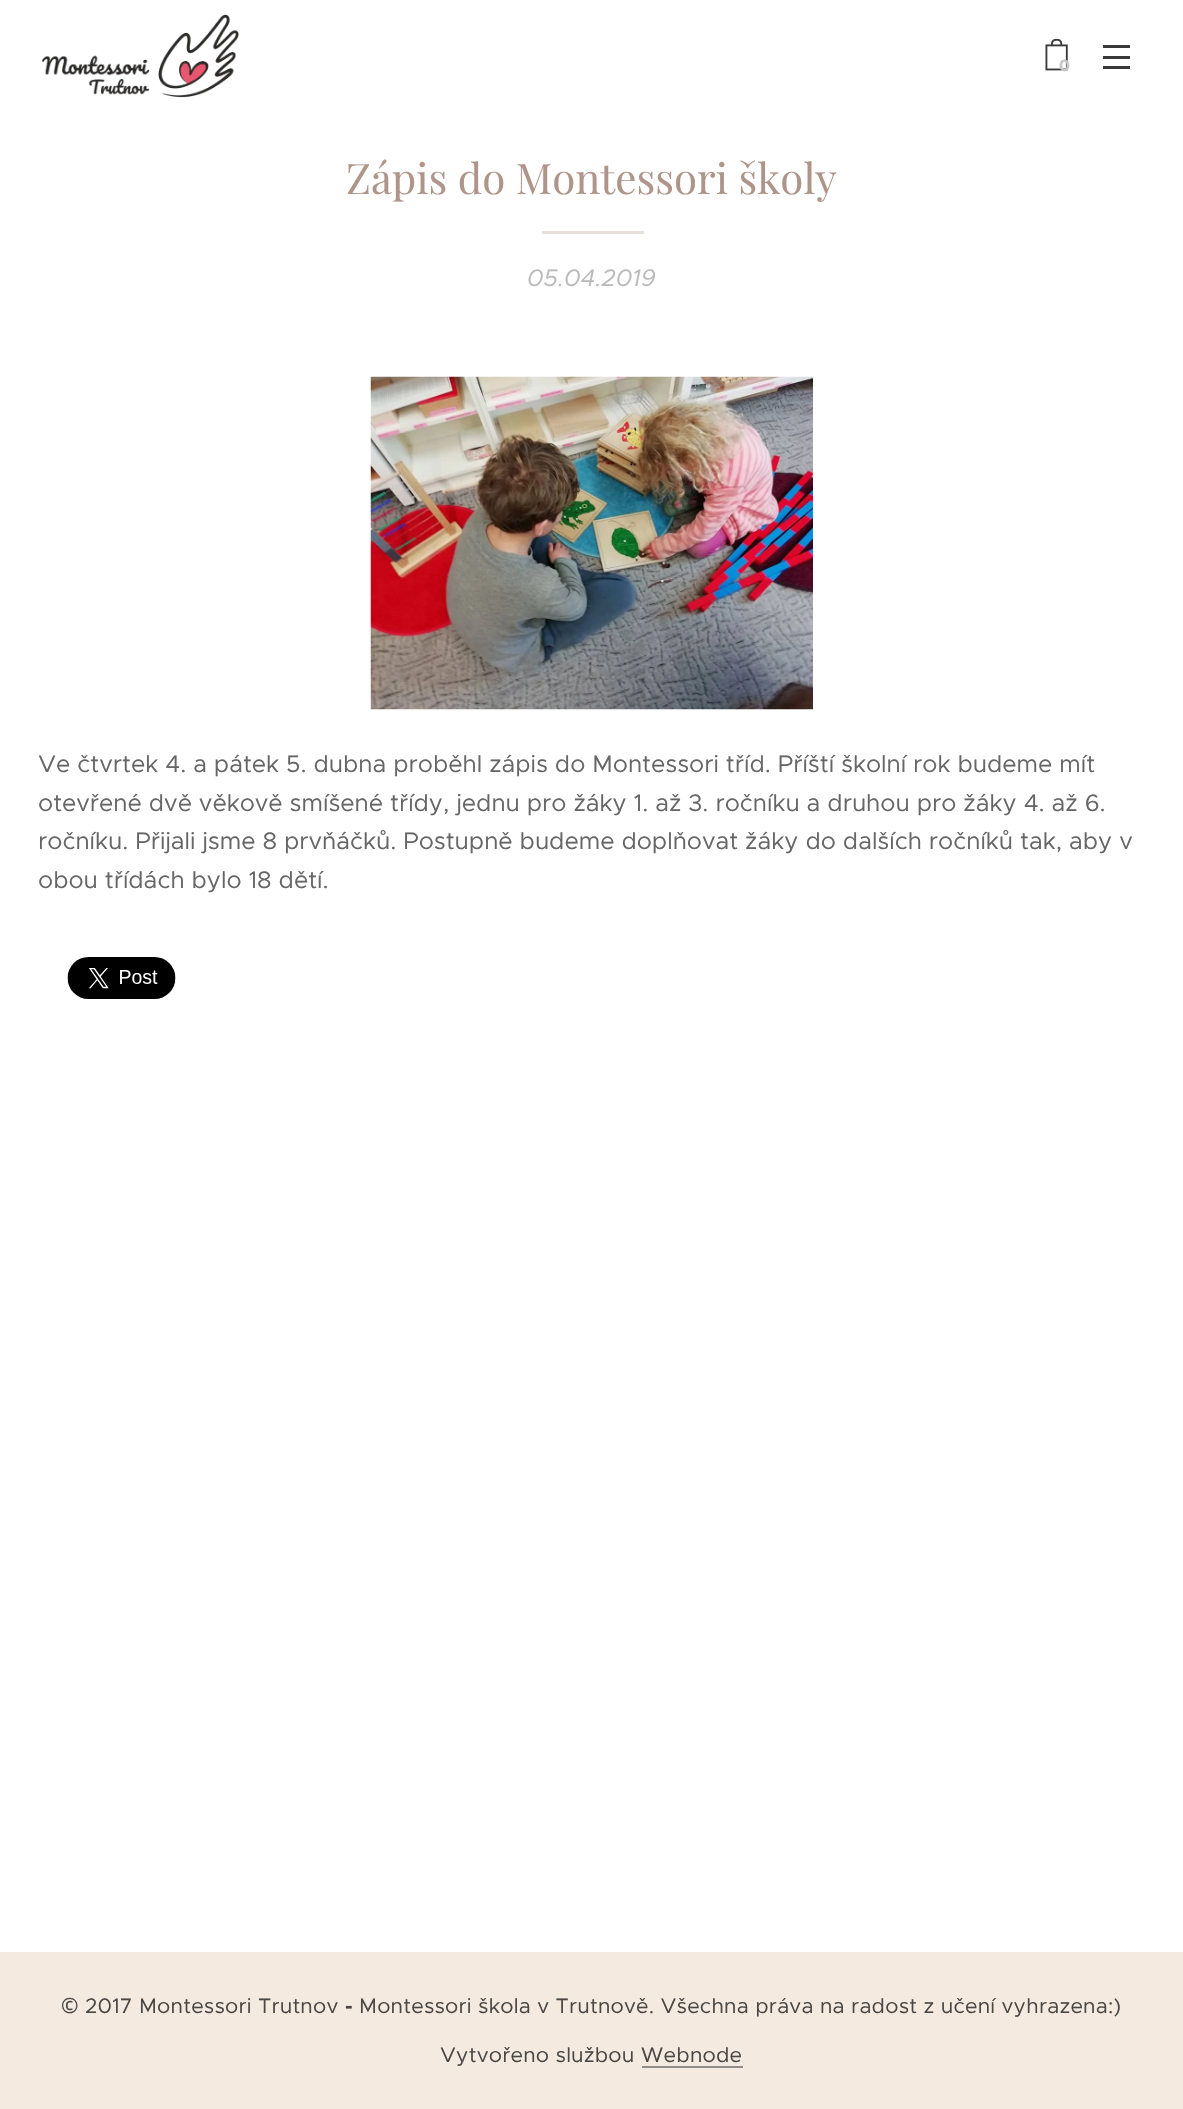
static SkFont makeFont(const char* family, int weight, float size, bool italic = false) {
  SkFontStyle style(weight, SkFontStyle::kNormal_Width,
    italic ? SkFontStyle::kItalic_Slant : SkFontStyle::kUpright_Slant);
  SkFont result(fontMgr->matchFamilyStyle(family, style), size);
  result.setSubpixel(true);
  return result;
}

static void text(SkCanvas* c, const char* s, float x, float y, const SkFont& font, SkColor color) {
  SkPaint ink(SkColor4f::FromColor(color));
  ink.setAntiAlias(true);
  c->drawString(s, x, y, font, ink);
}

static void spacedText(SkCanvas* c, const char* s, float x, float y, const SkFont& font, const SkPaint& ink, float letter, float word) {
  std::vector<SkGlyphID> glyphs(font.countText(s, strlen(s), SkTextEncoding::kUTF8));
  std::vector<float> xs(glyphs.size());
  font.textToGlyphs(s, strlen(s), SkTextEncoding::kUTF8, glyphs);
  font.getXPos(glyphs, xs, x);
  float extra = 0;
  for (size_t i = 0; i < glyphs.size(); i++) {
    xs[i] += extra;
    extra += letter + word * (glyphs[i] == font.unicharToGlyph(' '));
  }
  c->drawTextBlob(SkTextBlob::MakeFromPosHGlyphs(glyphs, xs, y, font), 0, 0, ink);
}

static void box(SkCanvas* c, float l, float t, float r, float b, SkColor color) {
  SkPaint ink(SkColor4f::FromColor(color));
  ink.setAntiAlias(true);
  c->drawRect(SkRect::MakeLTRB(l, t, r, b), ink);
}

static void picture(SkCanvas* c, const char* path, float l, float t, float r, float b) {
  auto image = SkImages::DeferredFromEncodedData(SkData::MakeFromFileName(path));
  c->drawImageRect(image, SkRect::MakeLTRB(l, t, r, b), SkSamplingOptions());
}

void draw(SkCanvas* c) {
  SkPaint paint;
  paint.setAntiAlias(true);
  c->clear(0xffffffff);
  picture(c, "img_01.png", 42, 14, 239, 98);
  picture(c, "img_02.png", 1045, 38, 1068, 71);
  SkFont face1 = makeFont("Montserrat", 700, 16);
  text(c, "0", 1059, 71, face1, 0xffc7c7c7);
  box(c, 1103, 56, 1130, 59, 0xff393939);
  box(c, 1103, 45, 1130, 48, 0xff393939);
  box(c, 1103, 66, 1130, 69, 0xff393939);
  SkFont face2 = makeFont("Playfair Display", 400, 42);
  text(c, "Zápis do Montessori školy", 346, 194, face2, 0xffaf948a);
  box(c, 542, 231, 644, 234, 0xffe7dfdc);
  SkFont face3 = makeFont("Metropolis", 400, 24, true);
  text(c, "05.04.2019", 527, 286, face3, 0xffbababa);
  picture(c, "img_03.png", 370, 376, 813, 710);
  SkFont face4 = makeFont("Metropolis", 400, 24);
  text(c, "Ve čtvrtek 4. a pátek 5. dubna proběhl zápis do Montessori tříd. Příští školní rok budeme mít", 38, 772, face4, 0xff666666);
  text(c, "otevřené dvě věkově smíšené třídy, jednu pro žáky 1. až 3. ročníku a druhou pro žáky 4. až 6.", 38, 811, face4, 0xff666666);
  text(c, "ročníku. Přijali jsme 8 prvňáčků. Postupně budeme doplňovat žáky do dalších ročníků tak, aby v", 38, 849, face4, 0xff666666);
  text(c, "obou třídách bylo 18 dětí.", 38, 888, face4, 0xff666666);
  picture(c, "img_04.png", 67, 957, 176, 999);
  box(c, 0, 1952, 1183, 2109, 0xfff4eae0);
  SkFont face5 = makeFont("Noto Sans", 400, 21);
  paint.setColor(0xff494643);
  spacedText(c, "©", 61, 2013, face5, paint, 0.2f, 0);
  SkFont face6 = makeFont("Metropolis", 400, 21);
  spacedText(c, "2017 Montessori Trutnov", 85, 2013, face6, paint, 0.2f, 0);
  SkFont face7 = makeFont("Metropolis", 700, 21);
  spacedText(c, "-", 345, 2013, face7, paint, 0.2f, 0);
  spacedText(c, "Montessori škola v Trutnově. Všechna práva na radost z učení vyhrazena:)", 359, 2013, face6, paint, 0.2f, 0);
  spacedText(c, "Vytvořeno službou Webnode", 440, 2062, face6, paint, 0.2f, 0);
  box(c, 642, 2066, 743, 2068, 0xff928c86);
}
